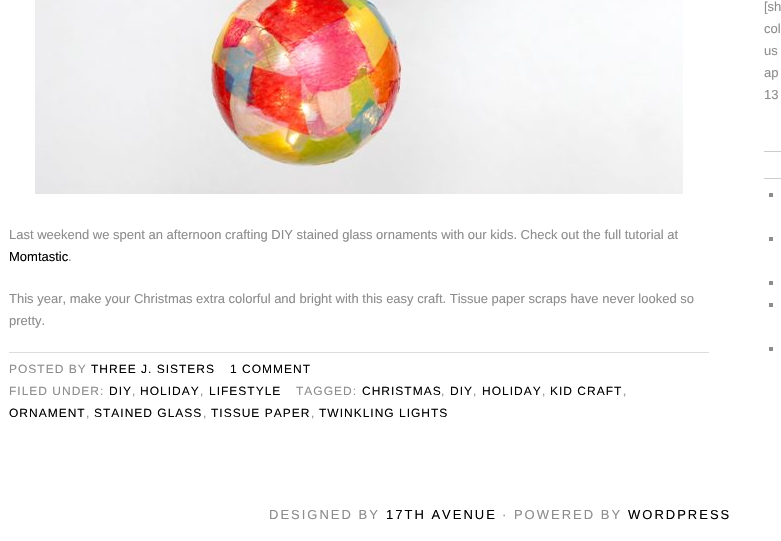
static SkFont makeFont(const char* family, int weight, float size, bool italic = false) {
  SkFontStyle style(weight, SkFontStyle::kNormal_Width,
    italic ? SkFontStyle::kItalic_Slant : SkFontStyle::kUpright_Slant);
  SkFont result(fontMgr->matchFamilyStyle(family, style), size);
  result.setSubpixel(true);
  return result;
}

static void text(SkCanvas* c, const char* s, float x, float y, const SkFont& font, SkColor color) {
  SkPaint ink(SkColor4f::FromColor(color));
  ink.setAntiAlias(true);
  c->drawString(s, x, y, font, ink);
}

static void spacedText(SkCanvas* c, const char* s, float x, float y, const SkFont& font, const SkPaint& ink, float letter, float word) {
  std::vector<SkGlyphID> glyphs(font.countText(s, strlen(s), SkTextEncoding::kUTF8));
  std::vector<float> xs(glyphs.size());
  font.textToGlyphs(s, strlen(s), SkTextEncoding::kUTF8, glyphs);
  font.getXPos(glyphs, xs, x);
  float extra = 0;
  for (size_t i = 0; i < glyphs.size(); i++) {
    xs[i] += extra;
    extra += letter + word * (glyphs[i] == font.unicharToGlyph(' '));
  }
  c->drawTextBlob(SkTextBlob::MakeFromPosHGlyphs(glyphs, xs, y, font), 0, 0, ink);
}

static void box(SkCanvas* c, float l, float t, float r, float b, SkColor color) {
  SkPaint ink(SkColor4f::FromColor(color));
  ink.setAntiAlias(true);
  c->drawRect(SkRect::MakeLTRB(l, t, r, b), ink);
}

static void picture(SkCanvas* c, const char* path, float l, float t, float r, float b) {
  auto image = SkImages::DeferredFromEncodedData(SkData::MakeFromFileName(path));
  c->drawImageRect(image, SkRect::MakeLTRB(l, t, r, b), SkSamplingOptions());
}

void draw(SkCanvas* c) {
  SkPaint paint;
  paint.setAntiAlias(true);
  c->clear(0xffffffff);
  SkFont face1 = makeFont("Liberation Sans", 400, 13);
  text(c, "[sh", 764, 11, face1, 0xff8c8c8c);
  text(c, "col", 764, 33, face1, 0xff8c8c8c);
  text(c, "us", 764, 55, face1, 0xff8c8c8c);
  text(c, "ap", 764, 77, face1, 0xff8c8c8c);
  text(c, "13", 764, 99, face1, 0xff8c8c8c);
  box(c, 764, 151, 781, 152, 0xffcccccc);
  box(c, 764, 178, 781, 179, 0xffcccccc);
  box(c, 769, 193, 773, 197, 0xff8c8c8c);
  box(c, 769, 237, 773, 241, 0xff8c8c8c);
  box(c, 769, 281, 773, 285, 0xff8c8c8c);
  box(c, 769, 303, 773, 307, 0xff8c8c8c);
  box(c, 769, 347, 773, 351, 0xff8c8c8c);
  picture(c, "img_01.png", 35, 0, 683, 194);
  text(c, "Last weekend we spent an afternoon crafting DIY stained glass ornaments with our kids. Check out the full tutorial at", 9, 239, face1, 0xff8c8c8c);
  text(c, "Momtastic", 9, 261, face1, 0xff000000);
  text(c, ".", 68, 261, face1, 0xff8c8c8c);
  text(c, "This year, make your Christmas extra colorful and bright with this easy craft. Tissue paper scraps have never looked so", 9, 303, face1, 0xff8c8c8c);
  text(c, "pretty.", 9, 325, face1, 0xff8c8c8c);
  box(c, 9, 352, 709, 353, 0xffdddddd);
  SkFont face2 = makeFont("Liberation Sans", 400, 12);
  paint.setColor(0xff8c8c8c);
  spacedText(c, "POSTED BY", 9, 373, face2, paint, 1, 0);
  paint.setColor(0xff000000);
  spacedText(c, "THREE J. SISTERS", 91, 373, face2, paint, 1, 0);
  spacedText(c, "1 COMMENT", 230, 373, face2, paint, 1, 0);
  paint.setColor(0xff8c8c8c);
  spacedText(c, "FILED UNDER:", 9, 395, face2, paint, 1, 0);
  paint.setColor(0xff000000);
  spacedText(c, "DIY", 109, 395, face2, paint, 1, 0);
  paint.setColor(0xff8c8c8c);
  spacedText(c, ",", 132, 395, face2, paint, 1, 0);
  paint.setColor(0xff000000);
  spacedText(c, "HOLIDAY", 140, 395, face2, paint, 1, 0);
  paint.setColor(0xff8c8c8c);
  spacedText(c, ",", 200, 395, face2, paint, 1, 0);
  paint.setColor(0xff000000);
  spacedText(c, "LIFESTYLE", 209, 395, face2, paint, 1, 0);
  paint.setColor(0xff8c8c8c);
  spacedText(c, "TAGGED:", 296, 395, face2, paint, 1, 0);
  paint.setColor(0xff000000);
  spacedText(c, "CHRISTMAS", 362, 395, face2, paint, 1, 0);
  paint.setColor(0xff8c8c8c);
  spacedText(c, ",", 441, 395, face2, paint, 1, 0);
  paint.setColor(0xff000000);
  spacedText(c, "DIY", 450, 395, face2, paint, 1, 0);
  paint.setColor(0xff8c8c8c);
  spacedText(c, ",", 473, 395, face2, paint, 1, 0);
  paint.setColor(0xff000000);
  spacedText(c, "HOLIDAY", 482, 395, face2, paint, 1, 0);
  paint.setColor(0xff8c8c8c);
  spacedText(c, ",", 542, 395, face2, paint, 1, 0);
  paint.setColor(0xff000000);
  spacedText(c, "KID CRAFT", 550, 395, face2, paint, 1, 0);
  paint.setColor(0xff8c8c8c);
  spacedText(c, ",", 623, 395, face2, paint, 1, 0);
  paint.setColor(0xff000000);
  spacedText(c, "ORNAMENT", 9, 417, face2, paint, 1, 0);
  paint.setColor(0xff8c8c8c);
  spacedText(c, ",", 86, 417, face2, paint, 1, 0);
  paint.setColor(0xff000000);
  spacedText(c, "STAINED GLASS", 94, 417, face2, paint, 1, 0);
  paint.setColor(0xff8c8c8c);
  spacedText(c, ",", 203, 417, face2, paint, 1, 0);
  paint.setColor(0xff000000);
  spacedText(c, "TISSUE PAPER", 211, 417, face2, paint, 1, 0);
  paint.setColor(0xff8c8c8c);
  spacedText(c, ",", 311, 417, face2, paint, 1, 0);
  paint.setColor(0xff000000);
  spacedText(c, "TWINKLING LIGHTS", 319, 417, face2, paint, 1, 0);
  paint.setColor(0xff8c8c8c);
  spacedText(c, "DESIGNED BY", 269, 519, face1, paint, 2, 0);
  paint.setColor(0xff000000);
  spacedText(c, "17TH AVENUE", 386, 519, face1, paint, 2, 0);
  paint.setColor(0xff8c8c8c);
  spacedText(c, "· POWERED BY", 502, 519, face1, paint, 2, 0);
  paint.setColor(0xff000000);
  spacedText(c, "WORDPRESS", 628, 519, face1, paint, 2, 0);
}
